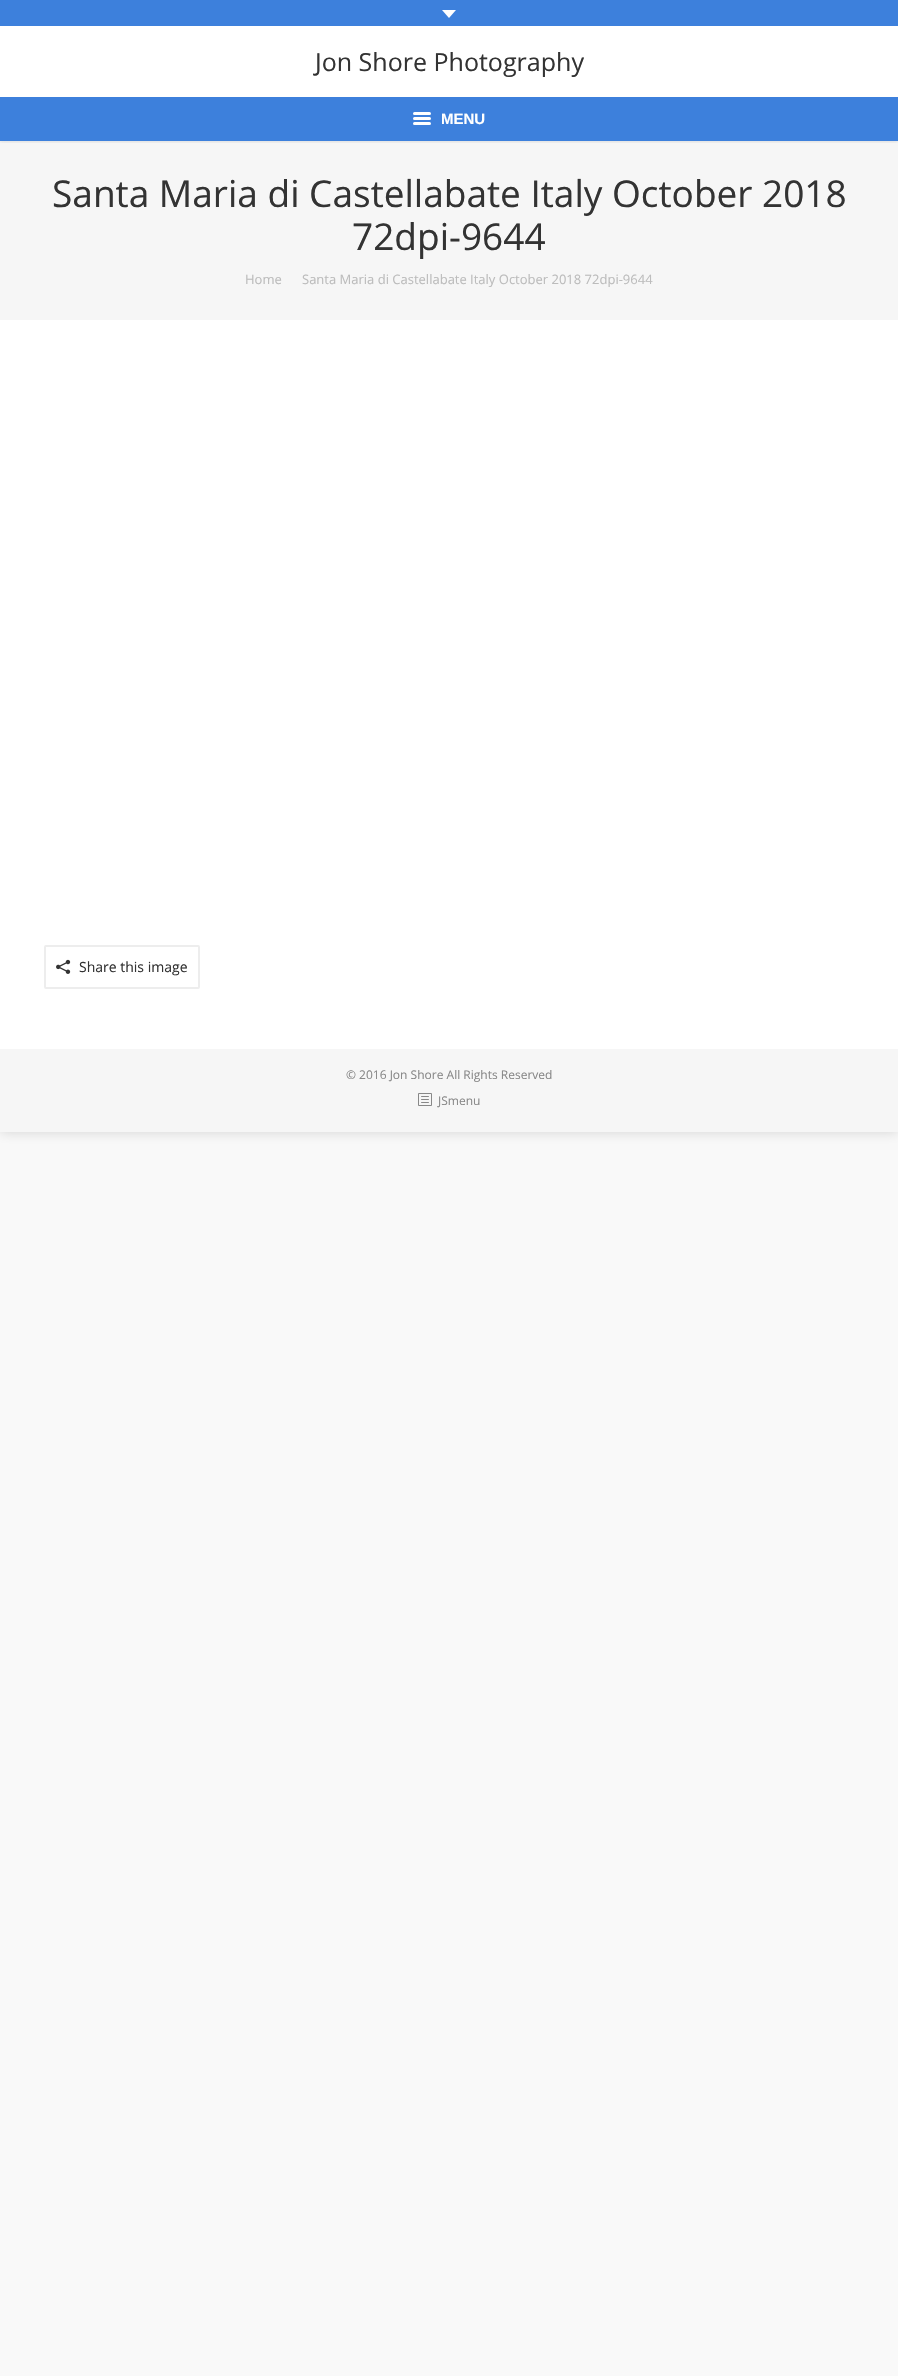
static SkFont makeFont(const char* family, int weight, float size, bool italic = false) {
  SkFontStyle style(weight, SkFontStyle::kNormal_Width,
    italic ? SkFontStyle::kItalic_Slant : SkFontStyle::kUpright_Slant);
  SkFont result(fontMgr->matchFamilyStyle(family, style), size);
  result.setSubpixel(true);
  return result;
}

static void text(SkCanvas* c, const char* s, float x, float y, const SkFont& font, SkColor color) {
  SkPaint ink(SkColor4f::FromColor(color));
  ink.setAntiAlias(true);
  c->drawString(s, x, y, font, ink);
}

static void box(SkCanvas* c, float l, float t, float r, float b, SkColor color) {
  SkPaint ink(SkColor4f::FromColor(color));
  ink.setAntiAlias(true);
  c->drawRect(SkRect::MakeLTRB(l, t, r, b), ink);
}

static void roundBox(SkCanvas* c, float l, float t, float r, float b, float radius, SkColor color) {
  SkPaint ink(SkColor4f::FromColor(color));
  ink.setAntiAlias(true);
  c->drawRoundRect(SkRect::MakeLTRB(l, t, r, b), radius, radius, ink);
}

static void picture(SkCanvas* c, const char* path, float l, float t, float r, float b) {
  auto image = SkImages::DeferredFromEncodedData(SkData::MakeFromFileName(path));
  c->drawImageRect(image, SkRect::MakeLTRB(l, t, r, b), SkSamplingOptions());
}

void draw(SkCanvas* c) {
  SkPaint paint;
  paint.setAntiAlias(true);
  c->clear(0xfff9f9f9);
  paint.setColor(0x26000000);
  paint.setMaskFilter(SkMaskFilter::MakeBlur(kNormal_SkBlurStyle, 6));
  c->drawRect(SkRect::MakeLTRB(0, 0, 898, 1132), paint);
  paint.setMaskFilter(nullptr);
  box(c, 0, 26, 898, 1049, 0xffffffff);
  box(c, 0, 141, 898, 320, 0xfff6f6f6);
  c->save();
  c->clipRect(SkRect::MakeLTRB(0, 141, 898, 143));
  paint.setMaskFilter(SkMaskFilter::MakeBlur(kNormal_SkBlurStyle, 2));
  c->drawRect(SkRect::MakeLTRB(0, -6, 898, 141), paint);
  paint.setMaskFilter(nullptr);
  c->restore();
  box(c, 0, 0, 898, 26, 0xff3d80dc);
  paint.setColor(0xffffffff);
  c->drawPath(SkPathBuilder().moveTo(442, 10).lineTo(456, 10).lineTo(449, 18).close().detach(), paint);
  SkFont face1 = makeFont("Open Sans", 400, 25);
  text(c, "Jon Shore Photography", 315, 71, face1, 0xff333333);
  box(c, 0, 97, 898, 141, 0xff3d80dc);
  roundBox(c, 413, 117, 431, 120, 1.5f, 0xffffffff);
  roundBox(c, 413, 112, 431, 115, 1.5f, 0xffffffff);
  roundBox(c, 413, 122, 431, 125, 1.5f, 0xffffffff);
  SkFont face2 = makeFont("Liberation Sans", 700, 15);
  text(c, "MENU", 441, 124, face2, 0xffffffff);
  SkFont face3 = makeFont("Open Sans", 400, 37);
  text(c, "Santa Maria di Castellabate Italy October 2018", 52, 207, face3, 0xff333333);
  text(c, "72dpi-9644", 352, 250, face3, 0xff333333);
  SkFont face4 = makeFont("Open Sans", 400, 13);
  text(c, "Home", 245, 284, face4, 0xffbcbcbc);
  text(c, "Santa Maria di Castellabate Italy October 2018 72dpi-9644", 302, 284, face4, 0xffbcbcbc);
  picture(c, "img_01.png", 56, 959, 71, 974);
  paint.setStyle(SkPaint::kStroke_Style);
  paint.setStrokeWidth(2);
  paint.setColor(0xffededed);
  c->drawRoundRect(SkRect::MakeLTRB(45, 946, 199, 988), 1, 1, paint);
  SkFont face5 = makeFont("Open Sans", 400, 14);
  text(c, "Share this image", 79, 972, face5, 0xff333333);
  box(c, 0, 1049, 898, 1132, 0xfff6f6f6);
  SkFont face6 = makeFont("Open Sans", 400, 12);
  text(c, "© 2016 Jon Shore All Rights Reserved", 346, 1079, face6, 0xff888888);
  picture(c, "img_02.png", 418, 1093, 432, 1106);
  text(c, "JSmenu", 438, 1105, face6, 0xff888888);
}
